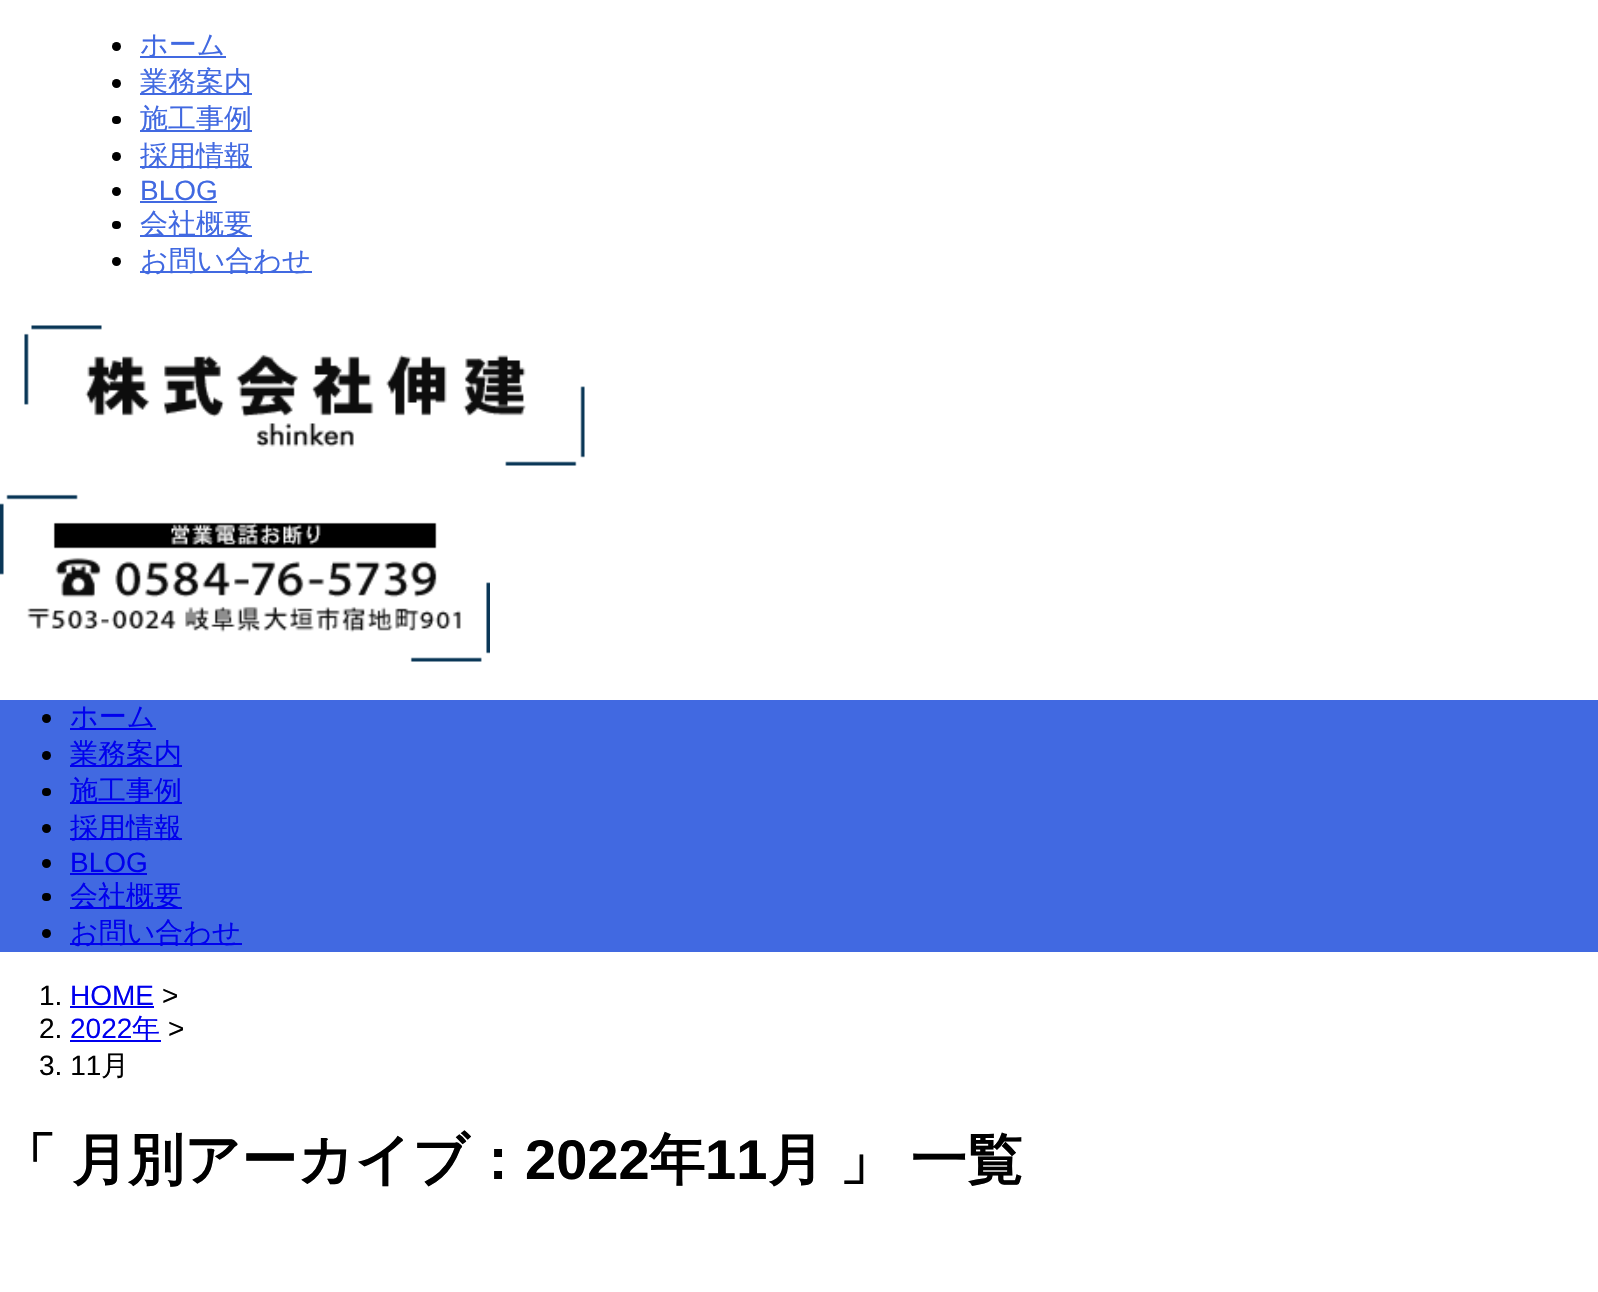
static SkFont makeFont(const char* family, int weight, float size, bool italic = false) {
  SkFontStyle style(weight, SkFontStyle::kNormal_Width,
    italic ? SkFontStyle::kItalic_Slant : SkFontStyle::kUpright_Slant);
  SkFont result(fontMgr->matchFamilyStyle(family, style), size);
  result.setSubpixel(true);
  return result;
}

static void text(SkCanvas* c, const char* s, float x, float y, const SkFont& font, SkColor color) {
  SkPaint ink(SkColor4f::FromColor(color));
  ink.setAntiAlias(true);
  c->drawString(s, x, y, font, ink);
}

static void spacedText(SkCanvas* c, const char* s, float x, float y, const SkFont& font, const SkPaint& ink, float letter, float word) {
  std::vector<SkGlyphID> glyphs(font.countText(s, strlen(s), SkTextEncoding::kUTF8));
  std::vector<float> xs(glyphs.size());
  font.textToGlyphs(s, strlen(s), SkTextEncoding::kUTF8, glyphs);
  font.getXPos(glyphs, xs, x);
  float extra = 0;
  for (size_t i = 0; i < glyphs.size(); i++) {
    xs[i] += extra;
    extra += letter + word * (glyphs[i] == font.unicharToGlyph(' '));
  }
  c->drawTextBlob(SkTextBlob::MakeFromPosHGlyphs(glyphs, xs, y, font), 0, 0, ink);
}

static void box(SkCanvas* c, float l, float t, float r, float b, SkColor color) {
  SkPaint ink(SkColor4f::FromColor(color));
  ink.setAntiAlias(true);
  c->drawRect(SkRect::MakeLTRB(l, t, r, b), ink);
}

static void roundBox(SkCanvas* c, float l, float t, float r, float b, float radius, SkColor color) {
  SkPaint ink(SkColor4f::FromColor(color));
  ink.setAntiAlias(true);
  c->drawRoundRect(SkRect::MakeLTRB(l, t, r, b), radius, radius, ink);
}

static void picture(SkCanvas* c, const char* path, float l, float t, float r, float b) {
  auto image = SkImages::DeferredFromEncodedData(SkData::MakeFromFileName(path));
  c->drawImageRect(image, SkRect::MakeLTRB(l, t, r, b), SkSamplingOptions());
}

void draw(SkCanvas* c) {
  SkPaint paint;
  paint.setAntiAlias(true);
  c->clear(0xffffffff);
  paint.setColor(0xff000000);
  c->drawCircle(116.5f, 46.5f, 4.5f, paint);
  box(c, 140, 56, 226, 58, 0xff4169e1);
  SkFont face1 = makeFont("WenQuanYi Zen Hei", 500, 28);
  text(c, "ホーム", 140, 54, face1, 0xff4169e1);
  c->drawCircle(116.5f, 83.5f, 4.5f, paint);
  box(c, 140, 93, 252, 95, 0xff4169e1);
  text(c, "業務案内", 140, 91, face1, 0xff4169e1);
  roundBox(c, 112, 116, 121, 124, 4, 0xff000000);
  box(c, 140, 130, 252, 132, 0xff4169e1);
  text(c, "施工事例", 140, 128, face1, 0xff4169e1);
  c->drawCircle(116.5f, 156.5f, 4.5f, paint);
  box(c, 140, 166, 252, 168, 0xff4169e1);
  text(c, "採用情報", 140, 165, face1, 0xff4169e1);
  c->drawCircle(116.5f, 191.5f, 4.5f, paint);
  SkFont face2 = makeFont("Liberation Sans", 400, 28);
  text(c, "BLOG", 140, 200, face2, 0xff4169e1);
  box(c, 140, 201, 217, 203, 0xff4169e1);
  roundBox(c, 112, 221, 121, 229, 4, 0xff000000);
  box(c, 140, 235, 252, 237, 0xff4169e1);
  text(c, "会社概要", 140, 233, face1, 0xff4169e1);
  c->drawCircle(116.5f, 261.5f, 4.5f, paint);
  box(c, 140, 271, 312, 273, 0xff4169e1);
  text(c, "お問い合わせ", 140, 270, face1, 0xff4169e1);
  picture(c, "img_01.png", 24, 325, 585, 466);
  picture(c, "img_02.png", 0, 494, 490, 662);
  box(c, 0, 700, 1598, 952, 0xff4169e1);
  c->drawCircle(46.5f, 718.5f, 4.5f, paint);
  box(c, 70, 728, 156, 730, 0xff0000ee);
  text(c, "ホーム", 70, 726, face1, 0xff0000ee);
  c->drawCircle(46.5f, 755.5f, 4.5f, paint);
  box(c, 70, 765, 182, 767, 0xff0000ee);
  text(c, "業務案内", 70, 763, face1, 0xff0000ee);
  roundBox(c, 42, 788, 51, 796, 4, 0xff000000);
  box(c, 70, 802, 182, 804, 0xff0000ee);
  text(c, "施工事例", 70, 800, face1, 0xff0000ee);
  c->drawCircle(46.5f, 828.5f, 4.5f, paint);
  box(c, 70, 838, 182, 840, 0xff0000ee);
  text(c, "採用情報", 70, 837, face1, 0xff0000ee);
  c->drawCircle(46.5f, 863.5f, 4.5f, paint);
  text(c, "BLOG", 70, 872, face2, 0xff0000ee);
  box(c, 70, 873, 147, 875, 0xff0000ee);
  roundBox(c, 42, 893, 51, 901, 4, 0xff000000);
  box(c, 70, 907, 182, 909, 0xff0000ee);
  text(c, "会社概要", 70, 905, face1, 0xff0000ee);
  c->drawCircle(46.5f, 933.5f, 4.5f, paint);
  box(c, 70, 943, 242, 945, 0xff0000ee);
  text(c, "お問い合わせ", 70, 942, face1, 0xff0000ee);
  text(c, "1.", 39, 1005, face2, 0xff000000);
  text(c, "HOME", 70, 1005, face2, 0xff0000ee);
  box(c, 70, 1006, 154, 1008, 0xff0000ee);
  text(c, ">", 162, 1005, face2, 0xff000000);
  text(c, "2.", 39, 1038, face2, 0xff000000);
  text(c, "2022", 70, 1038, face2, 0xff0000ee);
  box(c, 70, 1040, 161, 1042, 0xff0000ee);
  text(c, "年", 132, 1038, face1, 0xff0000ee);
  text(c, ">", 168, 1038, face2, 0xff000000);
  text(c, "3. 11", 39, 1075, face2, 0xff000000);
  text(c, "月", 101, 1075, face1, 0xff000000);
  SkFont face3 = makeFont("WenQuanYi Zen Hei", 700, 56);
  text(c, "「", 0, 1179, face3, 0xff000000);
  text(c, "月別アーカイブ：", 72, 1179, face3, 0xff000000);
  SkFont face4 = makeFont("Liberation Sans", 700, 56);
  text(c, "2022", 525, 1179, face4, 0xff000000);
  text(c, "年", 649, 1179, face3, 0xff000000);
  text(c, "11", 705, 1179, face4, 0xff000000);
  text(c, "月", 768, 1179, face3, 0xff000000);
  spacedText(c, "」 一覧", 839, 1179, face3, paint, 0, -1);
}
